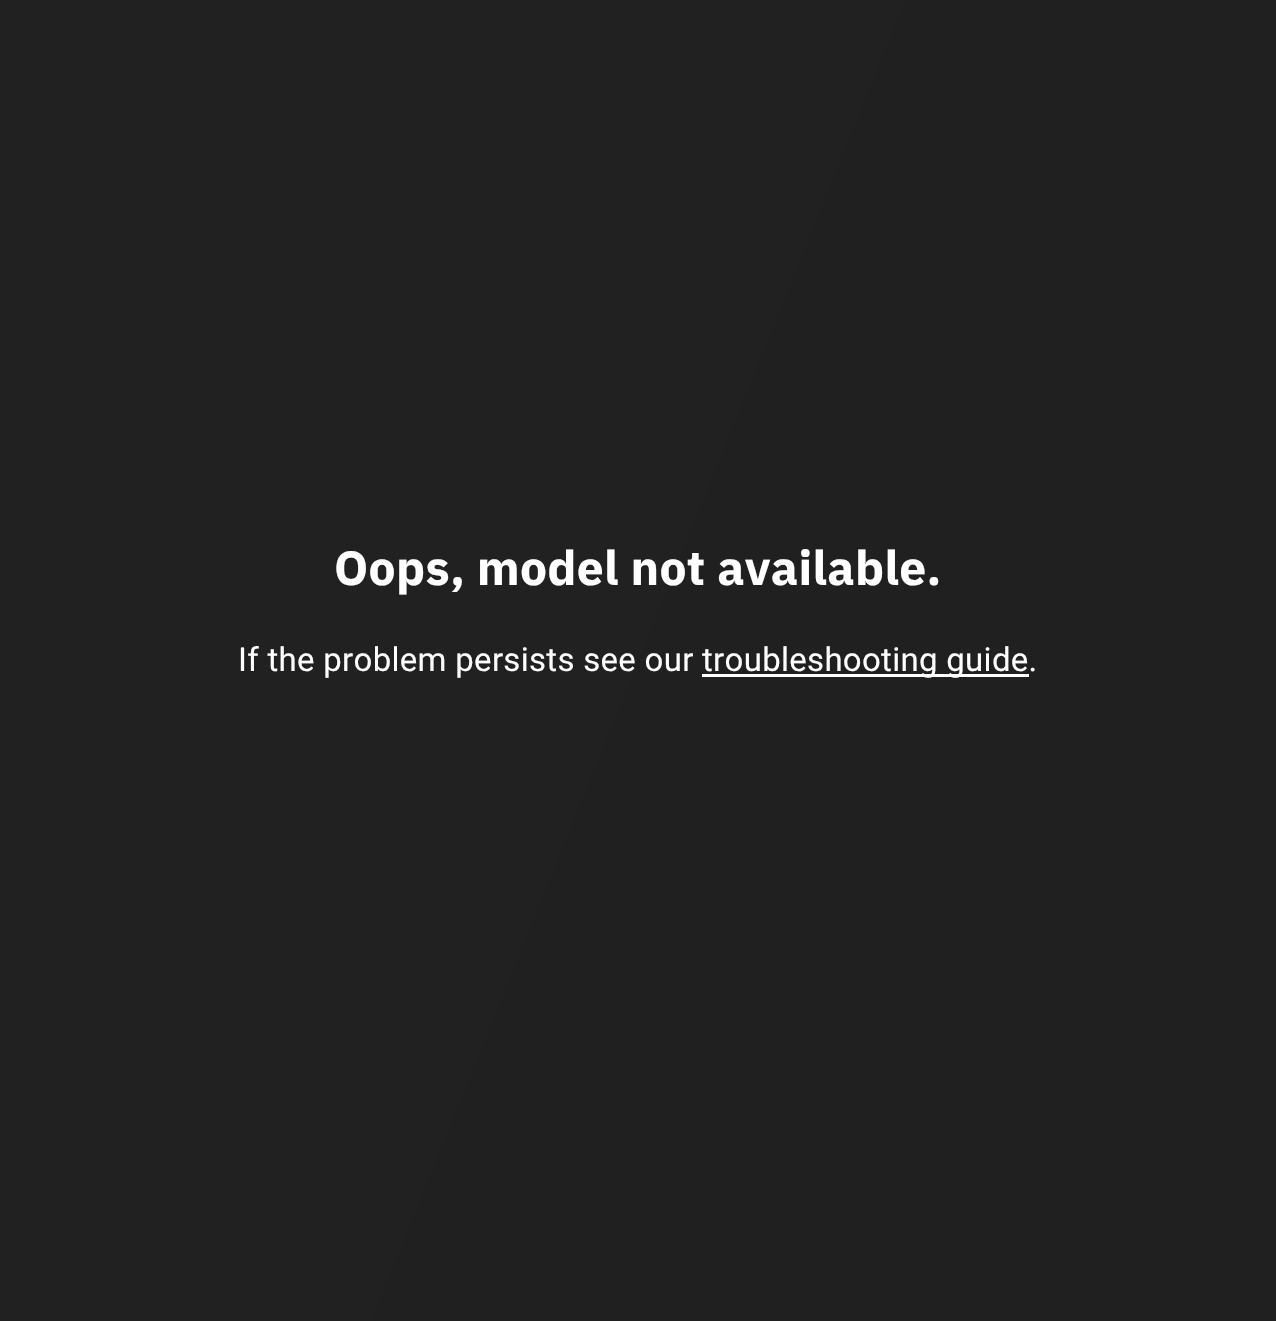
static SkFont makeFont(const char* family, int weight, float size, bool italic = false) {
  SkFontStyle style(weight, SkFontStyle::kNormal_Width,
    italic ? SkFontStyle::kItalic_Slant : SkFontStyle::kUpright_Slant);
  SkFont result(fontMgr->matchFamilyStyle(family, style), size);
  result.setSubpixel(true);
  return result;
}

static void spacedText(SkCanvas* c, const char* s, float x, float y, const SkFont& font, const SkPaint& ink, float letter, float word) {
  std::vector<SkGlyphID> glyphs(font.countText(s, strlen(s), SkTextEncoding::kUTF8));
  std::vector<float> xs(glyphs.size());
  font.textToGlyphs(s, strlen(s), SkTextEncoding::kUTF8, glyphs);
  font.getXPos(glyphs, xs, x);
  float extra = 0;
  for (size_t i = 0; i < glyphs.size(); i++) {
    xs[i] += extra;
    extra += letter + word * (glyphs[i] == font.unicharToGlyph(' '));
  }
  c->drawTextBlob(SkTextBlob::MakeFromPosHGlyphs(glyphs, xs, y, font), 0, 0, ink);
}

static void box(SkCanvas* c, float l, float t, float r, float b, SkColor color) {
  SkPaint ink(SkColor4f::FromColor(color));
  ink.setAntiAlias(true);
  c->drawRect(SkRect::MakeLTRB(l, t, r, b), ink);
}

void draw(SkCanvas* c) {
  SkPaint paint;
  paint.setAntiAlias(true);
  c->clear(0xffffffff);
  {
    const SkColor colors[] = {0xff212121, 0xff202020};
    const float stops[] = {0, 1};
    const SkPoint ends[] = {{-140, 346}, {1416, 975}};
    paint.setShader(SkGradientShader::MakeLinear(ends, colors, stops, 2, SkTileMode::kClamp));
    paint.setAlpha(255);
  }
  c->drawRect(SkRect::MakeLTRB(0, 0, 1276, 1321), paint);
  SkFont face1 = makeFont("IBM Plex Sans", 700, 48);
  paint.setShader(nullptr);
  paint.setColor(0xffffffff);
  spacedText(c, "Oops, model not available.", 334, 585, face1, paint, 0.3f, 0);
  SkFont face2 = makeFont("Roboto", 400, 33);
  spacedText(c, "If the problem persists see our", 238, 671, face2, paint, 0.3f, 0);
  box(c, 702, 674, 1029, 677, 0xffffffff);
  spacedText(c, "troubleshooting guide.", 702, 671, face2, paint, 0.3f, 0);
}
